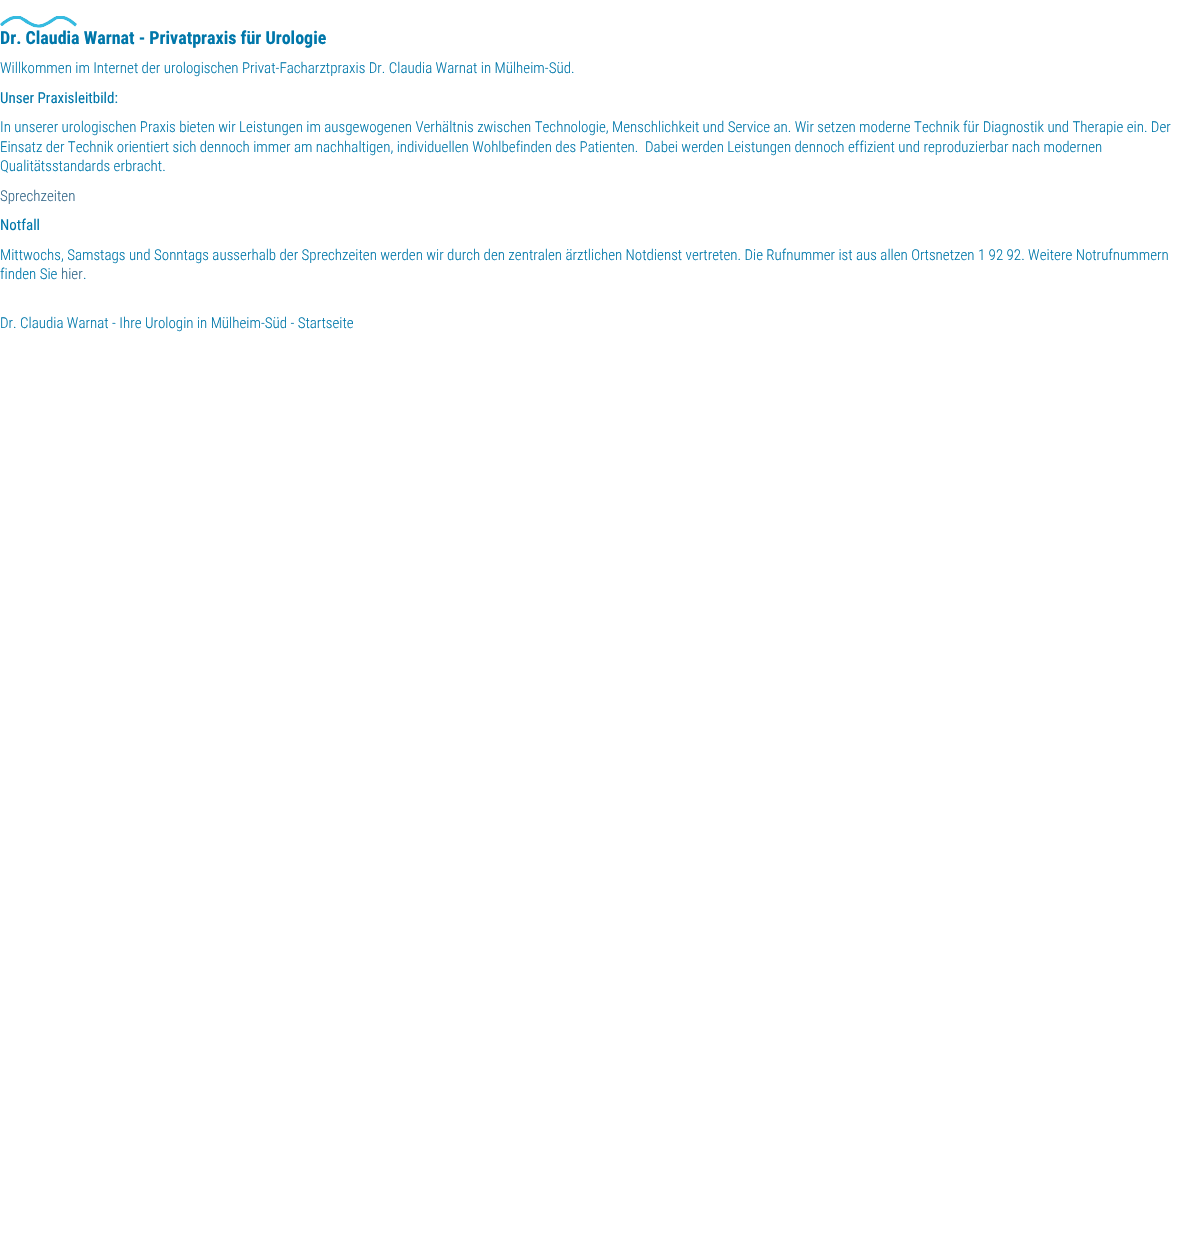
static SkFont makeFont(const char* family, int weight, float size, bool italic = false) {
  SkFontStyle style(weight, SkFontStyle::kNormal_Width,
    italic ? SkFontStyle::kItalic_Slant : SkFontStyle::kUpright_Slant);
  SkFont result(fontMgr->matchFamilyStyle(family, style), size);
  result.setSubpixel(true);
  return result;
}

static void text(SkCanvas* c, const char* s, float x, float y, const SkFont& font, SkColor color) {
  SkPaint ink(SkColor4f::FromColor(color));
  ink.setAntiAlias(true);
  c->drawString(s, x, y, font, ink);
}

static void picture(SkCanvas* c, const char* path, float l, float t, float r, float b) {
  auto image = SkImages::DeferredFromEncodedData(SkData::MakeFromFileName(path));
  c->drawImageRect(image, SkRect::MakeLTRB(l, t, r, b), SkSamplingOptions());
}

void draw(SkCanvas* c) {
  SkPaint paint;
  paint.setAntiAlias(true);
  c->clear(0xffffffff);
  picture(c, "img_01.png", 0, 16, 77, 28);
  SkFont face1 = makeFont("Roboto Condensed", 700, 18);
  text(c, "Dr. Claudia Warnat - Privatpraxis für Urologie", 0, 44, face1, 0xff0077aa);
  SkFont face2 = makeFont("Roboto Condensed", 300, 15);
  text(c, "Willkommen im Internet der urologischen Privat-Facharztpraxis Dr. Claudia Warnat in Mülheim-Süd.", 0, 73, face2, 0xff0077aa);
  SkFont face3 = makeFont("Roboto Condensed", 400, 15);
  text(c, "Unser Praxisleitbild:", 0, 103, face3, 0xff0077aa);
  text(c, "In unserer urologischen Praxis bieten wir Leistungen im ausgewogenen Verhältnis zwischen Technologie, Menschlichkeit und Service an. Wir setzen moderne Technik für Diagnostik und Therapie ein. Der", 0, 132, face2, 0xff0077aa);
  text(c, "Einsatz der Technik orientiert sich dennoch immer am nachhaltigen, individuellen Wohlbefinden des Patienten.  Dabei werden Leistungen dennoch effizient und reproduzierbar nach modernen", 0, 152, face2, 0xff0077aa);
  text(c, "Qualitätsstandards erbracht.", 0, 171, face2, 0xff0077aa);
  text(c, "Sprechzeiten", 0, 201, face2, 0xff336688);
  text(c, "Notfall", 0, 230, face3, 0xff0077aa);
  text(c, "Mittwochs, Samstags und Sonntags ausserhalb der Sprechzeiten werden wir durch den zentralen ärztlichen Notdienst vertreten. Die Rufnummer ist aus allen Ortsnetzen 1 92 92. Weitere Notrufnummern", 0, 260, face2, 0xff0077aa);
  text(c, "finden Sie", 0, 279, face2, 0xff0077aa);
  text(c, "hier", 61, 279, face2, 0xff336688);
  text(c, ".", 83, 279, face2, 0xff0077aa);
  text(c, "Dr. Claudia Warnat - Ihre Urologin in Mülheim-Süd - Startseite", 0, 328, face2, 0xff0077aa);
}
